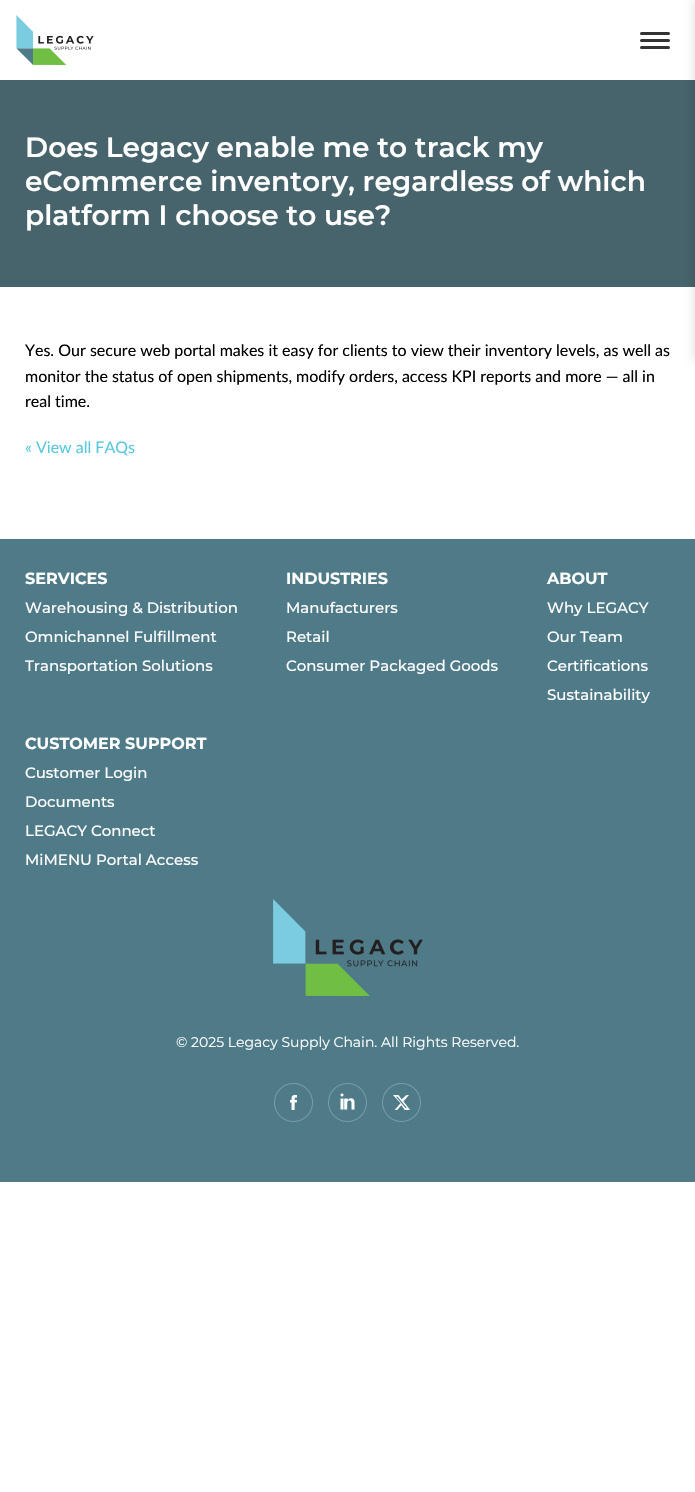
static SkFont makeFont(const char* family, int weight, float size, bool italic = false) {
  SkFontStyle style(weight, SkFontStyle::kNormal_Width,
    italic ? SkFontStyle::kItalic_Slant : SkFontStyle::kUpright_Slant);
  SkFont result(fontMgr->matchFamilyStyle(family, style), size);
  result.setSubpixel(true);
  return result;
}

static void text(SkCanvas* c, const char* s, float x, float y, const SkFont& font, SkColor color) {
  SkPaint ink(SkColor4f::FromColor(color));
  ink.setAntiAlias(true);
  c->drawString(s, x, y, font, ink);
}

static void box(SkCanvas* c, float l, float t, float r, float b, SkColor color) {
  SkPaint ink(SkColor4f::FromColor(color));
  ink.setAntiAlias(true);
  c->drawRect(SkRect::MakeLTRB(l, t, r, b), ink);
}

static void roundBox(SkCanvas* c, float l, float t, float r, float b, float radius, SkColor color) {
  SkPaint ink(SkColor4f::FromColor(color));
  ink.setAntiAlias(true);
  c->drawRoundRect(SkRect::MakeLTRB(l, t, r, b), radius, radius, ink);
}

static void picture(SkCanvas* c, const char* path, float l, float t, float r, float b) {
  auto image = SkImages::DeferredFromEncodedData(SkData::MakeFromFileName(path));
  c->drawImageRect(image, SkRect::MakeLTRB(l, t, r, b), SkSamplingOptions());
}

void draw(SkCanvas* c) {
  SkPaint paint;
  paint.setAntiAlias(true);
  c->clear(0xffffffff);
  picture(c, "img_01.png", 16, 15, 94, 65);
  roundBox(c, 640, 32, 670, 35, 1.5f, 0xff333333);
  roundBox(c, 640, 39, 670, 42, 1.5f, 0xff333333);
  roundBox(c, 640, 46, 670, 49, 1.5f, 0xff333333);
  box(c, 0, 80, 695, 287, 0xff47636b);
  paint.setColor(0x1a000000);
  paint.setMaskFilter(SkMaskFilter::MakeBlur(kNormal_SkBlurStyle, 5));
  c->drawRect(SkRect::MakeLTRB(693, 0, 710, 360), paint);
  paint.setMaskFilter(nullptr);
  SkFont face1 = makeFont("Montserrat", 600, 28);
  text(c, "Does Legacy enable me to track my", 25, 157, face1, 0xffffffff);
  text(c, "eCommerce inventory, regardless of which", 25, 191, face1, 0xffffffff);
  text(c, "platform I choose to use?", 25, 225, face1, 0xffffffff);
  SkFont face2 = makeFont("Lato", 400, 16);
  text(c, "Yes. Our secure web portal makes it easy for clients to view their inventory levels, as well as", 25, 356, face2, 0xff000000);
  text(c, "monitor the status of open shipments, modify orders, access KPI reports and more — all in", 25, 382, face2, 0xff000000);
  text(c, "real time.", 25, 407, face2, 0xff000000);
  text(c, "« View all FAQs", 25, 453, face2, 0xff59c7de);
  box(c, 0, 539, 695, 1182, 0xff4f7a88);
  SkFont face3 = makeFont("Montserrat", 700, 16);
  text(c, "SERVICES", 25, 584, face3, 0xffffffff);
  SkFont face4 = makeFont("Montserrat", 500, 15);
  text(c, "Warehousing & Distribution", 25, 613, face4, 0xffffffff);
  text(c, "Omnichannel Fulfillment", 25, 642, face4, 0xffffffff);
  text(c, "Transportation Solutions", 25, 671, face4, 0xffffffff);
  text(c, "INDUSTRIES", 286, 584, face3, 0xffffffff);
  text(c, "Manufacturers", 286, 613, face4, 0xffffffff);
  text(c, "Retail", 286, 642, face4, 0xffffffff);
  text(c, "Consumer Packaged Goods", 286, 671, face4, 0xffffffff);
  text(c, "ABOUT", 547, 584, face3, 0xffffffff);
  text(c, "Why LEGACY", 547, 613, face4, 0xffffffff);
  text(c, "Our Team", 547, 642, face4, 0xffffffff);
  text(c, "Certifications", 547, 671, face4, 0xffffffff);
  text(c, "Sustainability", 547, 700, face4, 0xffffffff);
  text(c, "CUSTOMER SUPPORT", 25, 749, face3, 0xffffffff);
  text(c, "Customer Login", 25, 778, face4, 0xffffffff);
  text(c, "Documents", 25, 807, face4, 0xffffffff);
  text(c, "LEGACY Connect", 25, 836, face4, 0xffffffff);
  text(c, "MiMENU Portal Access", 25, 865, face4, 0xffffffff);
  picture(c, "img_02.png", 273, 899, 423, 996);
  SkFont face5 = makeFont("Montserrat", 400, 14);
  text(c, "© 2025 Legacy Supply Chain. All Rights Reserved.", 176, 1047, face5, 0xffffffff);
  picture(c, "img_03.png", 274, 1083, 313, 1122);
  picture(c, "img_04.png", 328, 1083, 367, 1122);
  picture(c, "img_05.png", 382, 1083, 421, 1122);
}
